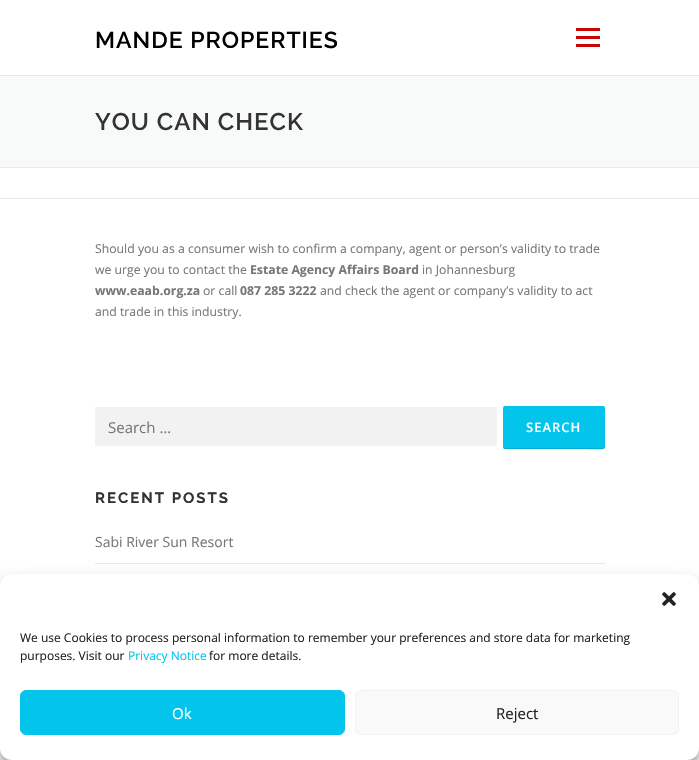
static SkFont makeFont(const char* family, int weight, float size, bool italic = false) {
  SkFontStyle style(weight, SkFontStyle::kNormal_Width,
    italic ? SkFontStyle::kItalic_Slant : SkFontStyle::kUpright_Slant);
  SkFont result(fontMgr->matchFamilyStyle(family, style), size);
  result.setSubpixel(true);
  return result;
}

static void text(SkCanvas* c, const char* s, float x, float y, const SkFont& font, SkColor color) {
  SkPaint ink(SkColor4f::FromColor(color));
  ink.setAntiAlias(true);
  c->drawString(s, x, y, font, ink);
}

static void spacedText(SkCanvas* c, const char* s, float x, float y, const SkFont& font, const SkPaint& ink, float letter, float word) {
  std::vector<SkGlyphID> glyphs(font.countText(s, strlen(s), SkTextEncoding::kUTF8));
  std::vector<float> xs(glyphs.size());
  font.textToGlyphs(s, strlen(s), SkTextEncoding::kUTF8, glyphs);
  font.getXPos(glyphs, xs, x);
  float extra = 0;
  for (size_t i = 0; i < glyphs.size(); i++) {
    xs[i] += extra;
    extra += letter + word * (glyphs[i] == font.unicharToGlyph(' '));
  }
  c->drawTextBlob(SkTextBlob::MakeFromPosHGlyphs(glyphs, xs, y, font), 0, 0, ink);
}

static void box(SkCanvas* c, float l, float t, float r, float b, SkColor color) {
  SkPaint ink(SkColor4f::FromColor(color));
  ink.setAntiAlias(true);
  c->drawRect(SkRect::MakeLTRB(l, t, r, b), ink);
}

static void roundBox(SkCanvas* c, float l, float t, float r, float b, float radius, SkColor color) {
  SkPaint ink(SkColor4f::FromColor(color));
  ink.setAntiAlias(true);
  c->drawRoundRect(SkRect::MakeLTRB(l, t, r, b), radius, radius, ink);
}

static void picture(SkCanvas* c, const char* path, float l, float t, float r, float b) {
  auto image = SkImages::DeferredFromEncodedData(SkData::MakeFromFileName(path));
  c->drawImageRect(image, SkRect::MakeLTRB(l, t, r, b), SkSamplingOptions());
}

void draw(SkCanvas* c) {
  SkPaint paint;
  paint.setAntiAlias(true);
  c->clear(0xffffffff);
  SkFont face1 = makeFont("Raleway", 600, 23);
  paint.setColor(0xff000000);
  spacedText(c, "MANDE PROPERTIES", 95, 48, face1, paint, 1, 0);
  box(c, 576, 36, 600, 39, 0xffc90505);
  box(c, 576, 28, 600, 31, 0xffc90505);
  box(c, 576, 44, 600, 47, 0xffc90505);
  box(c, 0, 76, 699, 167, 0xfff8f9f9);
  box(c, 0, 75, 699, 76, 0xffe9e9e9);
  box(c, 0, 167, 699, 168, 0xffe9e9e9);
  SkFont face2 = makeFont("Raleway", 600, 24);
  paint.setColor(0xff333333);
  spacedText(c, "YOU CAN CHECK", 95, 130, face2, paint, 1, 0);
  box(c, 0, 198, 699, 199, 0xffe9e9e9);
  SkFont face3 = makeFont("Open Sans", 400, 12.25f);
  text(c, "Should you as a consumer wish to confirm a company, agent or person’s validity to trade", 95, 253, face3, 0xff777777);
  text(c, "we urge you to contact the", 95, 274, face3, 0xff777777);
  SkFont face4 = makeFont("Open Sans", 700, 12.25f);
  text(c, "Estate Agency Affairs Board", 250, 274, face4, 0xff777777);
  text(c, "in Johannesburg", 422, 274, face3, 0xff777777);
  text(c, "www.eaab.org.za", 95, 295, face4, 0xff777777);
  text(c, "or call", 203, 295, face3, 0xff777777);
  text(c, "087 285 3222", 240, 295, face4, 0xff777777);
  text(c, "and check the agent or company’s validity to act", 320, 295, face3, 0xff777777);
  text(c, "and trade in this industry.", 95, 316, face3, 0xff777777);
  box(c, 95, 407, 497, 446, 0xfff2f2f2);
  SkFont face5 = makeFont("Open Sans", 400, 15);
  text(c, "Search …", 108, 433, face5, 0xff777777);
  roundBox(c, 503, 406, 605, 449, 2, 0xff03c4eb);
  paint.setColor(0x1a000000);
  c->drawPath(SkPathBuilder().moveTo(503, 446).cubicTo(503, 447, 503, 449, 505, 449).lineTo(587, 449).cubicTo(588, 449, 605, 454, 605, 446).cubicTo(605, 447, 604, 448, 603, 448).lineTo(505, 448).cubicTo(504, 448, 503, 447, 503, 446).close().detach(), paint);
  SkFont face6 = makeFont("Open Sans", 600, 13);
  paint.setColor(0xffffffff);
  spacedText(c, "SEARCH", 526, 432, face6, paint, 1, 0);
  SkFont face7 = makeFont("Raleway", 700, 15);
  paint.setColor(0xff333333);
  spacedText(c, "RECENT POSTS", 95, 503, face7, paint, 2, 0);
  box(c, 95, 563, 605, 564, 0xffe9e9e9);
  SkFont face8 = makeFont("Open Sans", 400, 14);
  text(c, "Sabi River Sun Resort", 95, 547, face8, 0xff777777);
  paint.setColor(0x3b000000);
  paint.setMaskFilter(SkMaskFilter::MakeBlur(kNormal_SkBlurStyle, 3));
  c->drawRoundRect(SkRect::MakeLTRB(0, 580, 699, 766), 12, 12, paint);
  paint.setMaskFilter(nullptr);
  paint.setColor(0x30000000);
  paint.setMaskFilter(SkMaskFilter::MakeBlur(kNormal_SkBlurStyle, 10));
  c->drawRoundRect(SkRect::MakeLTRB(0, 584, 699, 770), 12, 12, paint);
  paint.setMaskFilter(nullptr);
  paint.setColor(0xff808080);
  paint.setMaskFilter(SkMaskFilter::MakeBlur(kNormal_SkBlurStyle, 2.5f));
  c->drawRoundRect(SkRect::MakeLTRB(629, 686, 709, 746), 2, 2, paint);
  paint.setMaskFilter(nullptr);
  roundBox(c, 0, 574, 699, 760, 12, 0xffffffff);
  picture(c, "img_01.png", 662, 592, 676, 606);
  SkFont face9 = makeFont("Open Sans", 400, 12);
  text(c, "We use Cookies to process personal information to remember your preferences and store data for marketing", 20, 642, face9, 0xff222222);
  text(c, "purposes. Visit our", 20, 660, face9, 0xff222222);
  text(c, "Privacy Notice", 128, 660, face9, 0xff03c4eb);
  text(c, "for more details.", 209, 660, face9, 0xff222222);
  paint.setColor(0xff03c4eb);
  c->drawRoundRect(SkRect::MakeLTRB(20.5f, 690.5f, 344.5f, 734.5f), 5.5f, 5.5f, paint);
  paint.setStyle(SkPaint::kStroke_Style);
  paint.setStrokeWidth(1);
  c->drawRoundRect(SkRect::MakeLTRB(20.5f, 690.5f, 344.5f, 734.5f), 5.5f, 5.5f, paint);
  text(c, "Ok", 172, 719, face5, 0xffffffff);
  paint.setStyle(SkPaint::kFill_Style);
  paint.setColor(0xfff9f9f9);
  c->drawRoundRect(SkRect::MakeLTRB(355.5f, 690.5f, 678.5f, 734.5f), 5.5f, 5.5f, paint);
  paint.setStyle(SkPaint::kStroke_Style);
  paint.setColor(0xfff2f2f2);
  c->drawRoundRect(SkRect::MakeLTRB(355.5f, 690.5f, 678.5f, 734.5f), 5.5f, 5.5f, paint);
  text(c, "Reject", 496, 719, face5, 0xff222222);
}
